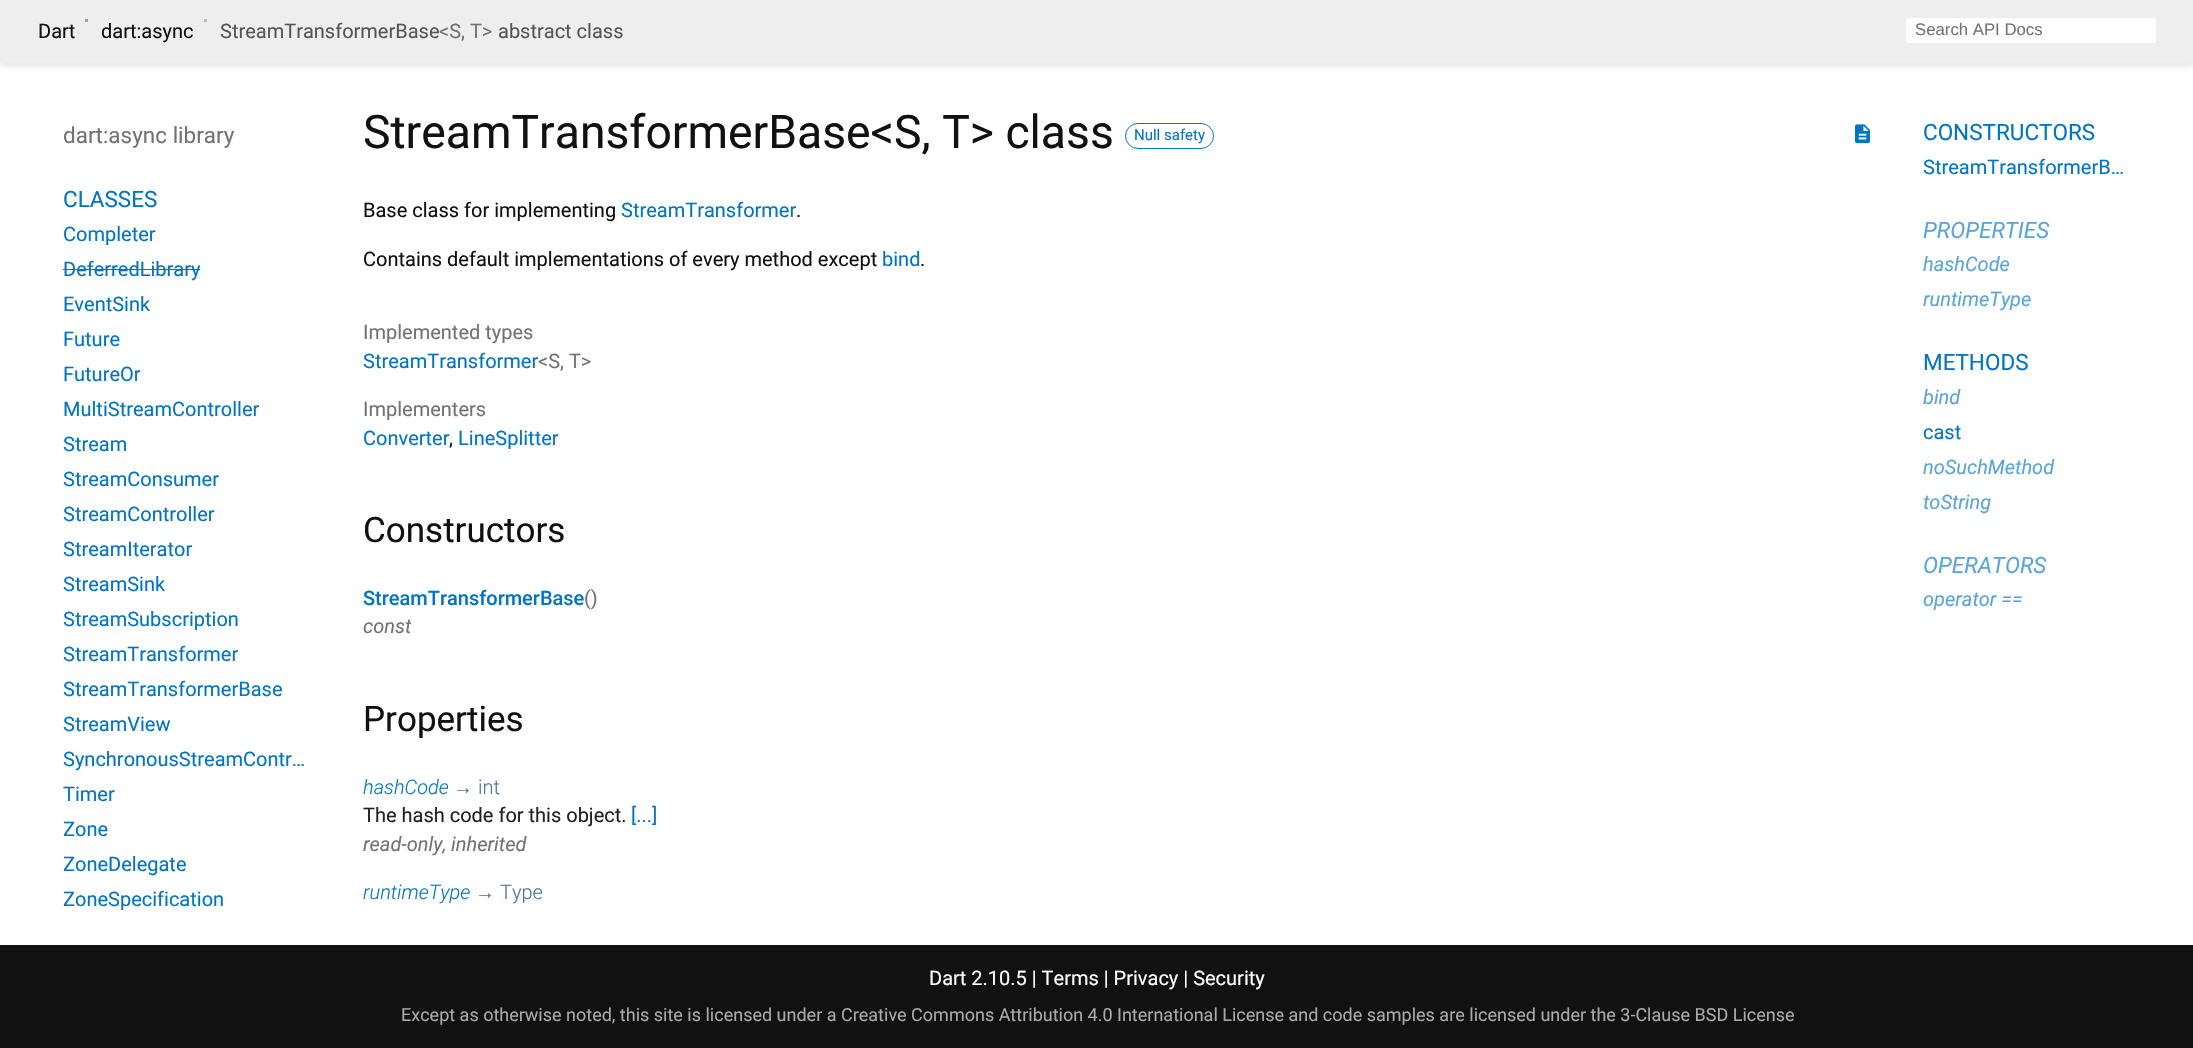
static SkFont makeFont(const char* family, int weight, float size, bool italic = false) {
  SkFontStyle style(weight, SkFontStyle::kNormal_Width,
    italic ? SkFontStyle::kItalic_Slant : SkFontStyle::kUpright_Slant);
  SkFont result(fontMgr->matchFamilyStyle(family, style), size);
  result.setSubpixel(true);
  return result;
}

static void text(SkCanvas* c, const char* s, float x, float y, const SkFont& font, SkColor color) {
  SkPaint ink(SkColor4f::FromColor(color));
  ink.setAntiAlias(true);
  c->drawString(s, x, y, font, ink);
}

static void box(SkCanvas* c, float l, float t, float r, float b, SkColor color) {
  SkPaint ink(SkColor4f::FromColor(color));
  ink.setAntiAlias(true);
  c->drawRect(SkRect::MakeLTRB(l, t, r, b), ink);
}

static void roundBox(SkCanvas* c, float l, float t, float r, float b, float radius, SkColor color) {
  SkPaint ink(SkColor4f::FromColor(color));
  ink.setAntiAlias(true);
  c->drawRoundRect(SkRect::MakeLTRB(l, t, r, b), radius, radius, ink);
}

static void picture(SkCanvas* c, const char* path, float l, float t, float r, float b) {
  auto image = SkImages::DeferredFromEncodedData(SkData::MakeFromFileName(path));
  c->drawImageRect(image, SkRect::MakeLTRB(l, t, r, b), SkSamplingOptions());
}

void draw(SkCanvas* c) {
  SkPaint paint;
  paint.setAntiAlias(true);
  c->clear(0xffffffff);
  paint.setColor(0x1a000000);
  paint.setMaskFilter(SkMaskFilter::MakeBlur(kNormal_SkBlurStyle, 3));
  c->drawRect(SkRect::MakeLTRB(0, 4, 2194, 66), paint);
  paint.setMaskFilter(nullptr);
  box(c, 0, 0, 2193, 63, 0xffeeeeee);
  SkFont face1 = makeFont("Roboto", 400, 20);
  text(c, "Dart", 38, 38, face1, 0xff111111);
  box(c, 85, 19, 88, 22, 0xffa1a1a1);
  text(c, "dart:async", 101, 38, face1, 0xff111111);
  box(c, 204, 19, 207, 22, 0xffbbbbbb);
  text(c, "StreamTransformerBase", 220, 38, face1, 0xff555555);
  text(c, "<S, T>", 439, 38, face1, 0xff727272);
  text(c, "abstract class", 498, 38, face1, 0xff555555);
  roundBox(c, 1906, 18, 2156, 43, 2.5f, 0xffffffff);
  SkFont face2 = makeFont("Liberation Sans", 400, 16.75f);
  text(c, "Search API Docs", 1915, 35, face2, 0xff727272);
  SkFont face3 = makeFont("Roboto", 400, 22.5f);
  text(c, "dart:async library", 63, 143, face3, 0xff727272);
  text(c, "CLASSES", 63, 207, face3, 0xff0175c2);
  text(c, "Completer", 63, 241, face1, 0xff0175c2);
  text(c, "DeferredLibrary", 63, 276, face1, 0xff0175c2);
  box(c, 63, 269, 200, 270, 0xff0175c2);
  text(c, "EventSink", 63, 311, face1, 0xff0175c2);
  text(c, "Future", 63, 346, face1, 0xff0175c2);
  text(c, "FutureOr", 63, 381, face1, 0xff0175c2);
  text(c, "MultiStreamController", 63, 416, face1, 0xff0175c2);
  text(c, "Stream", 63, 451, face1, 0xff0175c2);
  text(c, "StreamConsumer", 63, 486, face1, 0xff0175c2);
  text(c, "StreamController", 63, 521, face1, 0xff0175c2);
  text(c, "StreamIterator", 63, 556, face1, 0xff0175c2);
  text(c, "StreamSink", 63, 591, face1, 0xff0175c2);
  text(c, "StreamSubscription", 63, 626, face1, 0xff0175c2);
  text(c, "StreamTransformer", 63, 661, face1, 0xff0175c2);
  text(c, "StreamTransformerBase", 63, 696, face1, 0xff0175c2);
  text(c, "StreamView", 63, 731, face1, 0xff0175c2);
  text(c, "SynchronousStreamContr…", 63, 766, face1, 0xff0175c2);
  text(c, "Timer", 63, 801, face1, 0xff0175c2);
  text(c, "Zone", 63, 836, face1, 0xff0175c2);
  text(c, "ZoneDelegate", 63, 871, face1, 0xff0175c2);
  text(c, "ZoneSpecification", 63, 906, face1, 0xff0175c2);
  SkFont face4 = makeFont("Roboto", 400, 46.25f);
  text(c, "StreamTransformerBase<S, T> class", 363, 148, face4, 0xff111111);
  paint.setStyle(SkPaint::kStroke_Style);
  paint.setStrokeWidth(1);
  paint.setColor(0xff0175c2);
  c->drawRoundRect(SkRect::MakeLTRB(1125.5f, 123.5f, 1213.5f, 148.5f), 12.5f, 12.5f, paint);
  SkFont face5 = makeFont("Roboto", 400, 15);
  text(c, "Null safety", 1134, 140, face5, 0xff0175c2);
  picture(c, "img_01.png", 1855, 124, 1870, 144);
  text(c, "Base class for implementing", 363, 217, face1, 0xff111111);
  text(c, "StreamTransformer", 621, 217, face1, 0xff0175c2);
  text(c, ".", 796, 217, face1, 0xff111111);
  text(c, "Contains default implementations of every method except", 363, 266, face1, 0xff111111);
  text(c, "bind", 882, 266, face1, 0xff0175c2);
  text(c, ".", 920, 266, face1, 0xff111111);
  text(c, "Implemented types", 363, 339, face1, 0xff727272);
  text(c, "StreamTransformer", 363, 368, face1, 0xff0175c2);
  text(c, "<S, T>", 538, 368, face1, 0xff727272);
  text(c, "Implementers", 363, 416, face1, 0xff727272);
  text(c, "Converter", 363, 445, face1, 0xff0175c2);
  text(c, ",", 449, 445, face1, 0xff212121);
  text(c, "LineSplitter", 458, 445, face1, 0xff0175c2);
  SkFont face6 = makeFont("Roboto", 400, 35);
  text(c, "Constructors", 363, 542, face6, 0xff111111);
  SkFont face7 = makeFont("Roboto", 500, 20);
  text(c, "StreamTransformerBase", 363, 605, face7, 0xff0175c2);
  text(c, "()", 584, 605, face1, 0xff727272);
  SkFont face8 = makeFont("Roboto", 400, 20, true);
  text(c, "const", 363, 633, face8, 0xff727272);
  text(c, "Properties", 363, 731, face6, 0xff111111);
  SkFont face9 = makeFont("Roboto", 300, 20, true);
  text(c, "hashCode", 363, 794, face9, 0xff0175c2);
  SkFont face10 = makeFont("Liberation Sans", 400, 20);
  text(c, "→", 453, 794, face10, 0xff727272);
  SkFont face11 = makeFont("Roboto", 300, 20);
  text(c, "int", 478, 794, face11, 0xff4674a2);
  text(c, "The hash code for this object.", 363, 822, face1, 0xff212121);
  text(c, "[...]", 631, 822, face1, 0xff0175c2);
  text(c, "read-only, inherited", 363, 851, face8, 0xff727272);
  text(c, "runtimeType", 363, 899, face9, 0xff0175c2);
  text(c, "→", 475, 899, face10, 0xff727272);
  text(c, "Type", 500, 899, face11, 0xff4674a2);
  text(c, "CONSTRUCTORS", 1923, 140, face3, 0xff0175c2);
  text(c, "StreamTransformerB…", 1923, 174, face1, 0xff0175c2);
  SkFont face12 = makeFont("Roboto", 400, 22.5f, true);
  text(c, "PROPERTIES", 1923, 238, face12, 0xff5aa5d7);
  text(c, "hashCode", 1923, 271, face8, 0xff5aa5d7);
  text(c, "runtimeType", 1923, 306, face8, 0xff5aa5d7);
  text(c, "METHODS", 1923, 370, face3, 0xff0175c2);
  text(c, "bind", 1923, 404, face8, 0xff5aa5d7);
  text(c, "cast", 1923, 439, face1, 0xff0175c2);
  text(c, "noSuchMethod", 1923, 474, face8, 0xff5aa5d7);
  text(c, "toString", 1923, 509, face8, 0xff5aa5d7);
  text(c, "OPERATORS", 1923, 573, face12, 0xff5aa5d7);
  text(c, "operator ==", 1923, 606, face8, 0xff5aa5d7);
  box(c, 0, 945, 2193, 1048, 0xff111111);
  text(c, "Dart 2.10.5 | Terms | Privacy | Security", 929, 985, face1, 0xffffffff);
  SkFont face13 = makeFont("Roboto", 400, 18);
  text(c, "Except as otherwise noted, this site is licensed under a Creative Commons Attribution 4.0 International License and code samples are licensed under the 3-Clause BSD License", 401, 1021, face13, 0xffa9a9a9);
}
